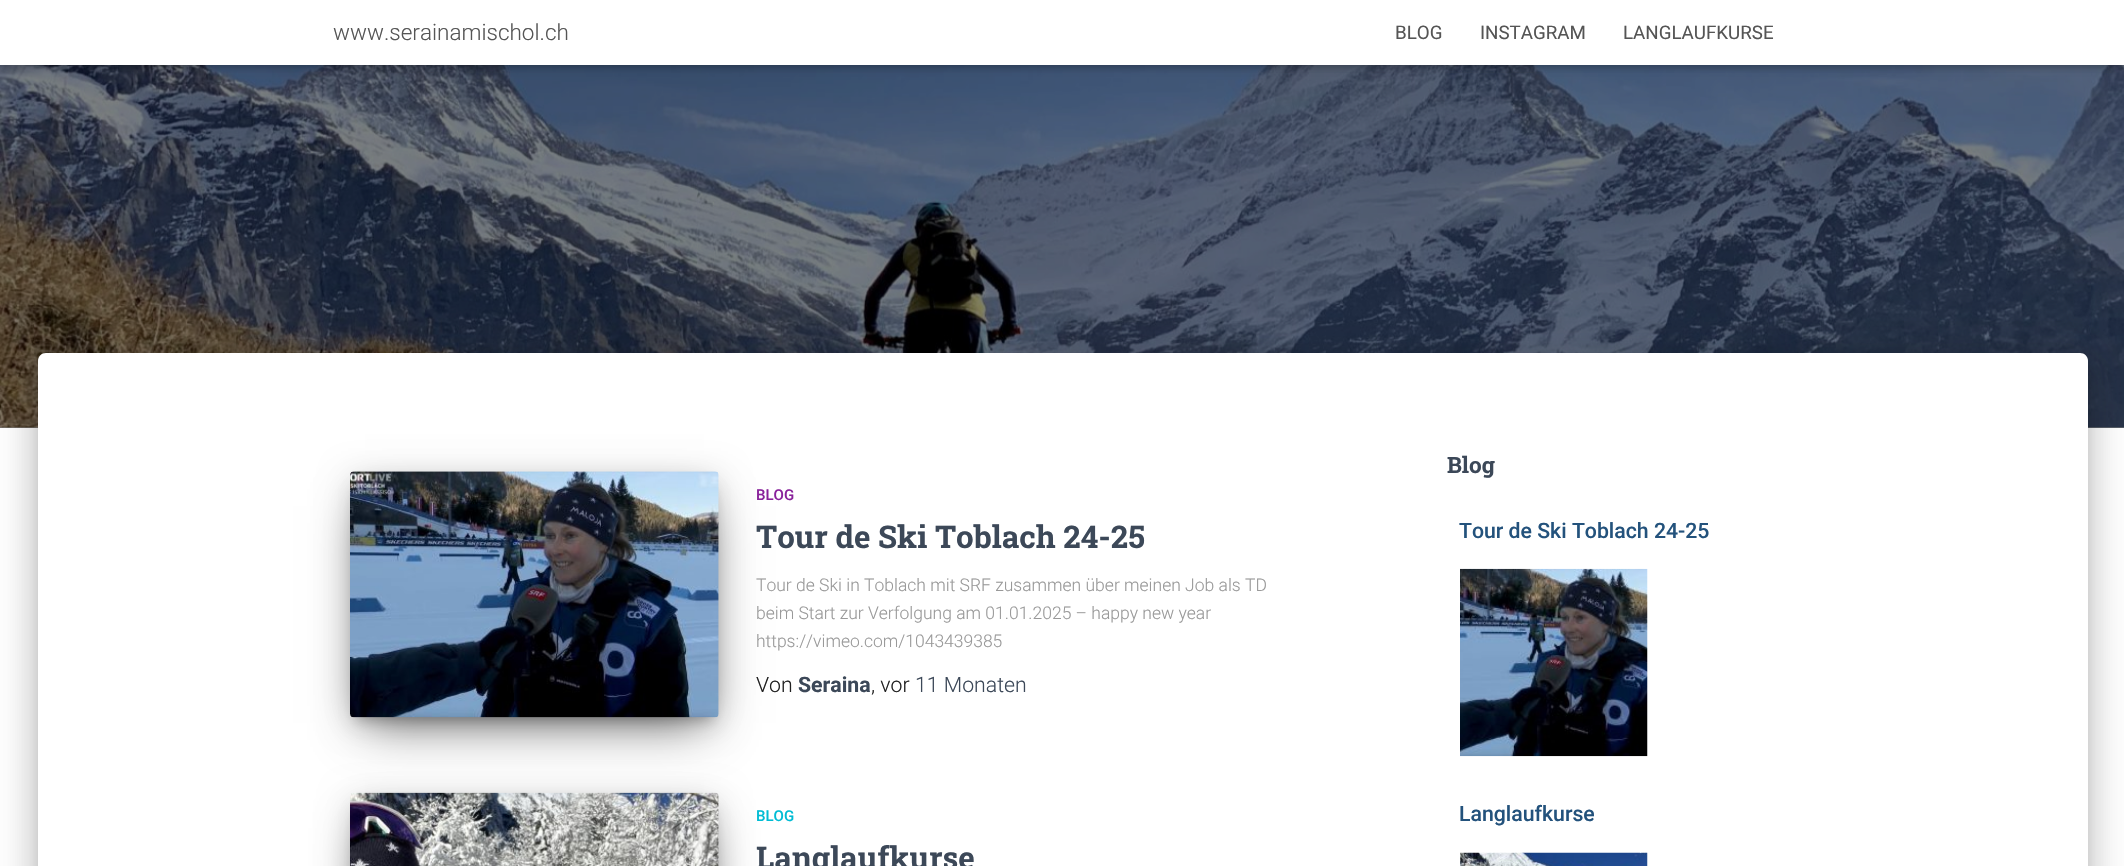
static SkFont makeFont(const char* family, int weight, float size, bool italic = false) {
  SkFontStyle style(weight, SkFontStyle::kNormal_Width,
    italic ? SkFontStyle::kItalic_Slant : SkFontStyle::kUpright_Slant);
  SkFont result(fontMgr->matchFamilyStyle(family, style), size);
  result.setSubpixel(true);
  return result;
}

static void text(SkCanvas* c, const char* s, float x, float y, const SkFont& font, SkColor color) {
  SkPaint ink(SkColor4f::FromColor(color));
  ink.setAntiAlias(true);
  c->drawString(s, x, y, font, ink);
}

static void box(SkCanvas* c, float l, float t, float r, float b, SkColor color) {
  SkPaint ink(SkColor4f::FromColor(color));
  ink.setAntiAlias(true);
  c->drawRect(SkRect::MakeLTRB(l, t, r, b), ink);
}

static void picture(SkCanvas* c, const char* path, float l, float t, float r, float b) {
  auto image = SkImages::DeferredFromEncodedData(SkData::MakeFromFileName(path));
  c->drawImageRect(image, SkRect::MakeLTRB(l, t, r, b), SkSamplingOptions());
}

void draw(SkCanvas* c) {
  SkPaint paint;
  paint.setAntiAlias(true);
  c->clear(0xffffffff);
  box(c, 0, 427, 2124, 428, 0xff808080);
  picture(c, "img_01.png", 0, 65, 2124, 428);
  paint.setColor(0x1a000000);
  paint.setMaskFilter(SkMaskFilter::MakeBlur(kNormal_SkBlurStyle, 3));
  c->drawRect(SkRect::MakeLTRB(3, 8, 2123, 68), paint);
  paint.setMaskFilter(nullptr);
  paint.setColor(0x1f000000);
  paint.setMaskFilter(SkMaskFilter::MakeBlur(kNormal_SkBlurStyle, 6));
  c->drawRect(SkRect::MakeLTRB(0, 1, 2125, 66), paint);
  paint.setMaskFilter(nullptr);
  paint.setColor(0x6b000000);
  paint.setMaskFilter(SkMaskFilter::MakeBlur(kNormal_SkBlurStyle, 6));
  c->drawRect(SkRect::MakeLTRB(8, 9, 2118, 59), paint);
  paint.setMaskFilter(nullptr);
  box(c, 0, 0, 2124, 65, 0xffffffff);
  SkFont face1 = makeFont("Roboto", 300, 22.5f);
  text(c, "www.serainamischol.ch", 333, 40, face1, 0xff555555);
  SkFont face2 = makeFont("Roboto", 400, 18.75f);
  text(c, "BLOG", 1395, 39, face2, 0xff555555);
  text(c, "INSTAGRAM", 1480, 39, face2, 0xff555555);
  text(c, "LANGLAUFKURSE", 1623, 39, face2, 0xff555555);
  paint.setColor(0x33000000);
  paint.setMaskFilter(SkMaskFilter::MakeBlur(kNormal_SkBlurStyle, 6));
  c->drawRoundRect(SkRect::MakeLTRB(44, 369, 2081, 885), 1, 1, paint);
  paint.setMaskFilter(nullptr);
  paint.setColor(0x1f000000);
  paint.setMaskFilter(SkMaskFilter::MakeBlur(kNormal_SkBlurStyle, 19));
  c->drawRoundRect(SkRect::MakeLTRB(31, 354, 2094, 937), 14, 14, paint);
  paint.setMaskFilter(nullptr);
  paint.setColor(0x24000000);
  paint.setMaskFilter(SkMaskFilter::MakeBlur(kNormal_SkBlurStyle, 15));
  c->drawRoundRect(SkRect::MakeLTRB(35, 370, 2090, 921), 10, 10, paint);
  paint.setMaskFilter(nullptr);
  paint.setColor(0xffffffff);
  c->drawPath(SkPathBuilder().moveTo(46, 353).lineTo(2080, 353).cubicTo(2084.5f, 353, 2088, 356.5f, 2088, 361).lineTo(2088, 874).lineTo(38, 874).lineTo(38, 361).cubicTo(38, 356.5f, 41.5f, 353, 46, 353).close().detach(), paint);
  paint.setColor(0x33000000);
  paint.setMaskFilter(SkMaskFilter::MakeBlur(kNormal_SkBlurStyle, 6));
  c->drawRect(SkRect::MakeLTRB(356, 488, 713, 721), paint);
  paint.setMaskFilter(nullptr);
  paint.setColor(0x1f000000);
  paint.setMaskFilter(SkMaskFilter::MakeBlur(kNormal_SkBlurStyle, 15.5f));
  c->drawRoundRect(SkRect::MakeLTRB(350, 476, 719, 723), 4, 4, paint);
  paint.setMaskFilter(nullptr);
  paint.setColor(0x8f000000);
  paint.setMaskFilter(SkMaskFilter::MakeBlur(kNormal_SkBlurStyle, 24));
  c->drawRect(SkRect::MakeLTRB(365, 506, 704, 723), paint);
  paint.setMaskFilter(nullptr);
  picture(c, "img_02.png", 350, 471, 719, 718);
  SkFont face3 = makeFont("Roboto", 500, 15);
  text(c, "BLOG", 756, 500, face3, 0xff89229b);
  SkFont face4 = makeFont("Roboto Slab", 700, 31.25f);
  text(c, "Tour de Ski Toblach 24-25", 756, 548, face4, 0xff3c4858);
  SkFont face5 = makeFont("Roboto", 300, 17.5f);
  text(c, "Tour de Ski in Toblach mit SRF zusammen über meinen Job als TD", 756, 591, face5, 0xff999999);
  text(c, "beim Start zur Verfolgung am 01.01.2025 – happy new year", 756, 619, face5, 0xff999999);
  text(c, "https://vimeo.com/1043439385", 756, 647, face5, 0xff999999);
  SkFont face6 = makeFont("Roboto", 300, 21.25f);
  text(c, "Von", 756, 692, face6, 0xff212121);
  SkFont face7 = makeFont("Roboto", 700, 21.25f);
  text(c, "Seraina", 798, 692, face7, 0xff3c4858);
  text(c, ", vor", 871, 692, face6, 0xff212121);
  text(c, "11 Monaten", 915, 692, face6, 0xff3c4858);
  paint.setColor(0x33000000);
  paint.setMaskFilter(SkMaskFilter::MakeBlur(kNormal_SkBlurStyle, 6));
  c->drawRect(SkRect::MakeLTRB(356, 809, 713, 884), paint);
  paint.setMaskFilter(nullptr);
  paint.setColor(0x1f000000);
  paint.setMaskFilter(SkMaskFilter::MakeBlur(kNormal_SkBlurStyle, 15.5f));
  c->drawRoundRect(SkRect::MakeLTRB(350, 798, 719, 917), 4, 4, paint);
  paint.setMaskFilter(nullptr);
  paint.setColor(0x8f000000);
  paint.setMaskFilter(SkMaskFilter::MakeBlur(kNormal_SkBlurStyle, 24));
  c->drawRect(SkRect::MakeLTRB(365, 828, 704, 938), paint);
  paint.setMaskFilter(nullptr);
  picture(c, "img_03.png", 350, 792, 719, 866);
  text(c, "BLOG", 756, 821, face3, 0xff00bcd4);
  text(c, "Langlaufkurse", 756, 869, face4, 0xff3c4858);
  SkFont face8 = makeFont("Roboto Slab", 700, 22.5f);
  text(c, "Blog", 1447, 473, face8, 0xff3c4858);
  SkFont face9 = makeFont("Roboto", 500, 21.25f);
  text(c, "Tour de Ski Toblach 24-25", 1459, 538, face9, 0xff23527c);
  picture(c, "img_04.png", 1460, 568, 1648, 757);
  text(c, "Langlaufkurse", 1459, 821, face9, 0xff23527c);
  picture(c, "img_05.png", 1460, 852, 1648, 866);
}
